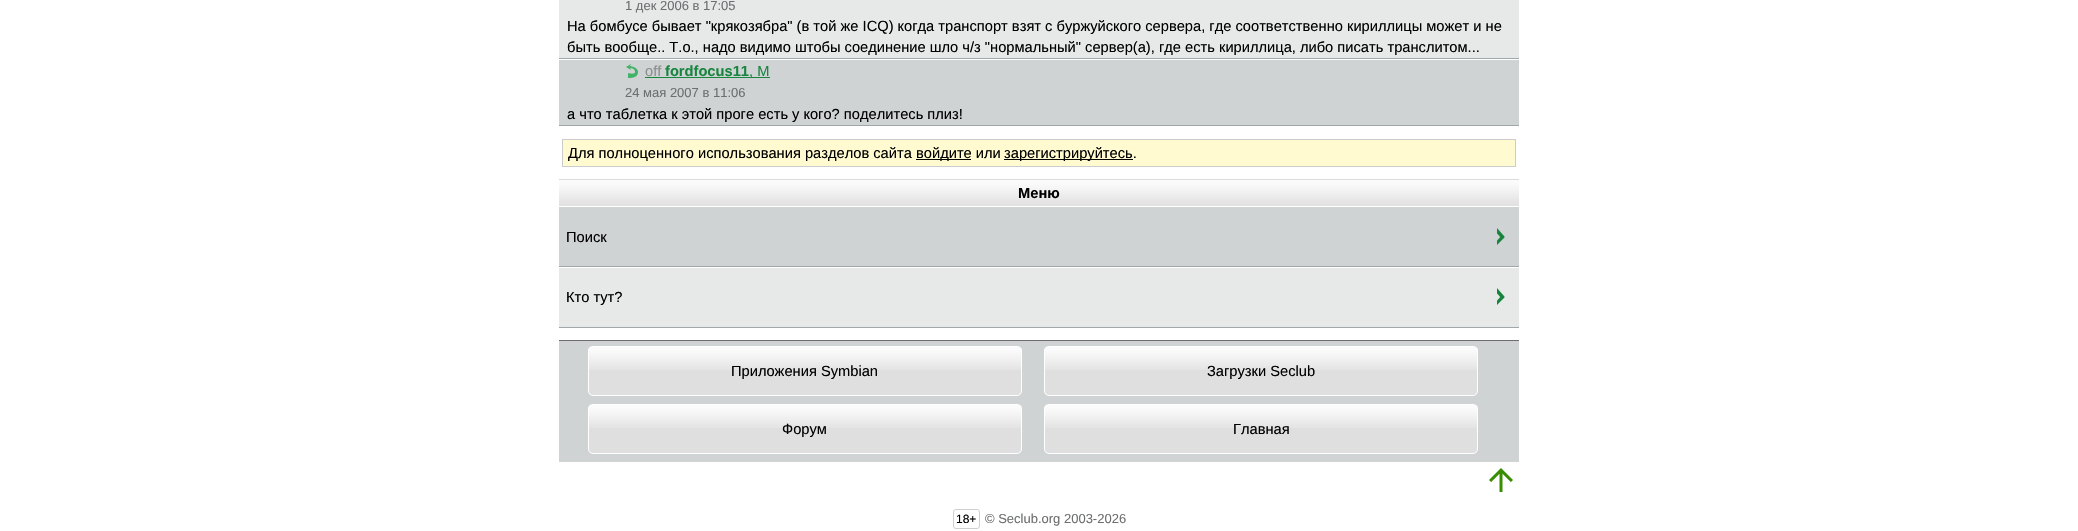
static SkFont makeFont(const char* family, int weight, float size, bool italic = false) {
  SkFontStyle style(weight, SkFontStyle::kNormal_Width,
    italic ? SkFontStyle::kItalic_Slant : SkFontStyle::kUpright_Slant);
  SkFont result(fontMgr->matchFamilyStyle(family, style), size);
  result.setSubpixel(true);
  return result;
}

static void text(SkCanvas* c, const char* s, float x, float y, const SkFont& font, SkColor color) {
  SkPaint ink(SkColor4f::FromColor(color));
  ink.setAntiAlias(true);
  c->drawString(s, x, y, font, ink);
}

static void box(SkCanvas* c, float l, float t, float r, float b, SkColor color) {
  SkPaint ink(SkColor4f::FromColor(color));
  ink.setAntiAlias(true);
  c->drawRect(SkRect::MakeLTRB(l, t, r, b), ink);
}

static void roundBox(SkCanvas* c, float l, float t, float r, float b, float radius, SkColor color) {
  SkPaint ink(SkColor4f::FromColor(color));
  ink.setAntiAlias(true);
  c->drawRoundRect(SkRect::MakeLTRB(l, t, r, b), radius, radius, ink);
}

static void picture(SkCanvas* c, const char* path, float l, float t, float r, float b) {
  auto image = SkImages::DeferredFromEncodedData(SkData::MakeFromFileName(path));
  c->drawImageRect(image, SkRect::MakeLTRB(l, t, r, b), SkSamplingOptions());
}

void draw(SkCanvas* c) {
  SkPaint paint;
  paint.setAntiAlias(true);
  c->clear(0xffffffff);
  box(c, 559, 0, 1519, 58, 0xffe7e9e9);
  box(c, 559, 58, 1519, 59, 0xffa2a7aa);
  SkFont face1 = makeFont("Liberation Sans", 400, 13);
  text(c, "1 дек 2006 в 17:05", 625, 10, face1, 0xff6c6e70);
  SkFont face2 = makeFont("Liberation Sans", 400, 14.67f);
  text(c, "На бомбусе бывает \"крякозябра\" (в той же ICQ) когда транспорт взят с буржуйского сервера, где соответственно кириллицы может и не", 567, 31, face2, 0xff000000);
  text(c, "быть вообще.. Т.о., надо видимо штобы соединение шло ч/з \"нормальный\" сервер(а), где есть кириллица, либо писать транслитом...", 567, 52, face2, 0xff000000);
  box(c, 559, 60, 1519, 125, 0xffd0d3d4);
  box(c, 559, 125, 1519, 126, 0xffa2a7aa);
  picture(c, "img_01.png", 626, 64, 638, 78);
  text(c, "off", 645, 76, face2, 0xff8e8e8e);
  SkFont face3 = makeFont("Liberation Sans", 700, 14.67f);
  text(c, "fordfocus11", 665, 76, face3, 0xff18853f);
  box(c, 645, 77, 770, 78, 0xff18853f);
  text(c, ", М", 749, 76, face2, 0xff18853f);
  text(c, "24 мая 2007 в 11:06", 625, 97, face1, 0xff6c6e70);
  text(c, "а что таблетка к этой проге есть у кого? поделитесь плиз!", 567, 119, face2, 0xff000000);
  paint.setColor(0xfffffacf);
  c->drawRect(SkRect::MakeLTRB(562.5f, 139.5f, 1515.5f, 166.5f), paint);
  paint.setStyle(SkPaint::kStroke_Style);
  paint.setStrokeWidth(1);
  paint.setColor(0xffcccccc);
  c->drawRect(SkRect::MakeLTRB(562.5f, 139.5f, 1515.5f, 166.5f), paint);
  text(c, "Для полноценного использования разделов сайта", 568, 158, face2, 0xff000000);
  box(c, 916, 159, 971, 160, 0xff030303);
  text(c, "войдите или", 916, 158, face2, 0xff000000);
  box(c, 1004, 159, 1133, 160, 0xff030303);
  text(c, "зарегистрируйтесь.", 1004, 158, face2, 0xff000000);
  picture(c, "img_02.png", 559, 180, 1519, 206);
  box(c, 559, 179, 1519, 180, 0xffdbdbdb);
  text(c, "Меню", 1018, 198, face3, 0xff000000);
  box(c, 559, 207, 1519, 266, 0xffd0d3d4);
  box(c, 559, 266, 1519, 267, 0xffa2a7aa);
  picture(c, "img_03.png", 1497, 228, 1505, 245);
  text(c, "Поиск", 566, 242, face2, 0xff000000);
  box(c, 559, 268, 1519, 327, 0xffe7e9e9);
  box(c, 559, 327, 1519, 328, 0xffa2a7aa);
  picture(c, "img_04.png", 1497, 288, 1505, 305);
  text(c, "Кто тут?", 566, 302, face2, 0xff000000);
  box(c, 559, 341, 1519, 462, 0xffd0d3d4);
  box(c, 559, 340, 1519, 341, 0xff6c6e70);
  roundBox(c, 588, 346, 1022, 396, 5, 0xffdfdfdf);
  picture(c, "img_05.png", 588, 347, 1022, 370);
  paint.setColor(0xffffffff);
  c->drawRoundRect(SkRect::MakeLTRB(588.5f, 346.5f, 1021.5f, 395.5f), 4.5f, 4.5f, paint);
  text(c, "Приложения Symbian", 731, 376, face2, 0xff000000);
  roundBox(c, 1044, 346, 1478, 396, 5, 0xffdfdfdf);
  picture(c, "img_05.png", 1044, 347, 1478, 370);
  c->drawRoundRect(SkRect::MakeLTRB(1044.5f, 346.5f, 1477.5f, 395.5f), 4.5f, 4.5f, paint);
  text(c, "Загрузки Seclub", 1207, 376, face2, 0xff000000);
  roundBox(c, 588, 404, 1022, 454, 5, 0xffdfdfdf);
  picture(c, "img_05.png", 588, 405, 1022, 428);
  c->drawRoundRect(SkRect::MakeLTRB(588.5f, 404.5f, 1021.5f, 453.5f), 4.5f, 4.5f, paint);
  text(c, "Форум", 782, 434, face2, 0xff000000);
  roundBox(c, 1044, 404, 1478, 454, 5, 0xffdfdfdf);
  picture(c, "img_05.png", 1044, 405, 1478, 428);
  c->drawRoundRect(SkRect::MakeLTRB(1044.5f, 404.5f, 1477.5f, 453.5f), 4.5f, 4.5f, paint);
  text(c, "Главная", 1233, 434, face2, 0xff000000);
  picture(c, "img_06.png", 1489, 468, 1513, 492);
  paint.setColor(0xffcfcfcf);
  c->drawRoundRect(SkRect::MakeLTRB(953.5f, 509.5f, 979.5f, 528.5f), 2.5f, 2.5f, paint);
  SkFont face4 = makeFont("Liberation Sans", 400, 12);
  text(c, "18+", 956, 523, face4, 0xff000000);
  text(c, "© Seclub.org 2003-2026", 985, 523, face1, 0xff6c6e70);
}
